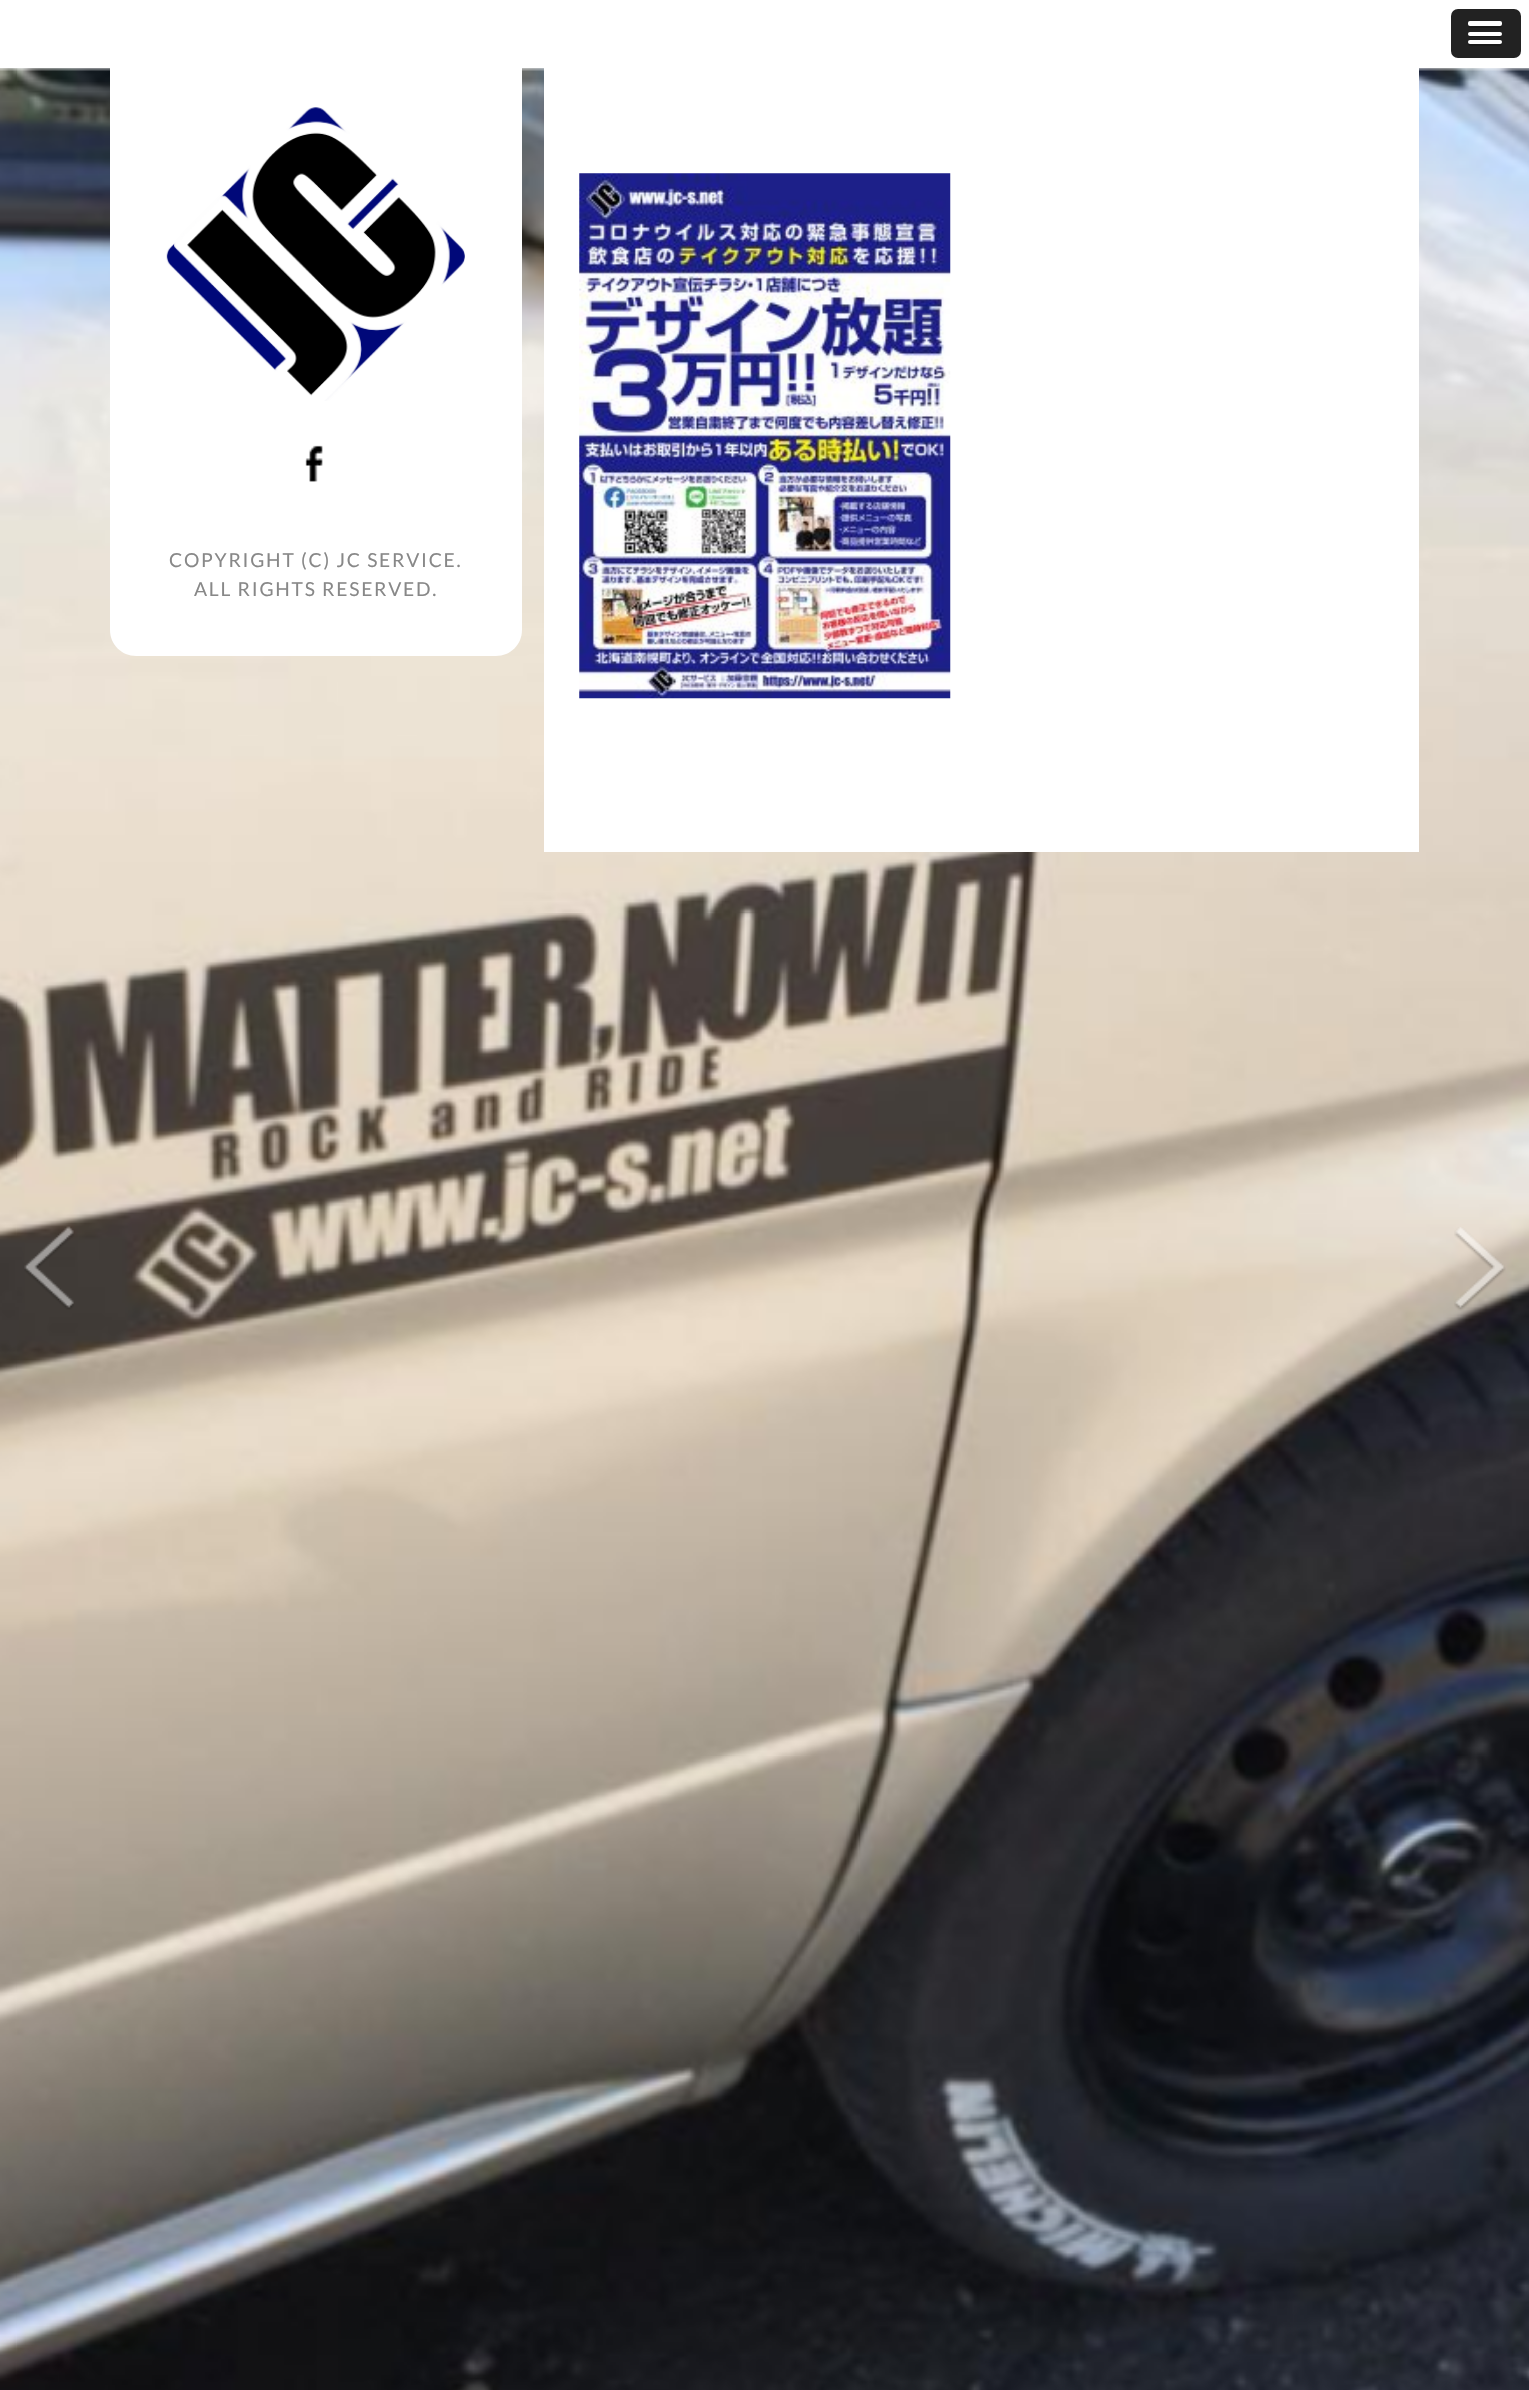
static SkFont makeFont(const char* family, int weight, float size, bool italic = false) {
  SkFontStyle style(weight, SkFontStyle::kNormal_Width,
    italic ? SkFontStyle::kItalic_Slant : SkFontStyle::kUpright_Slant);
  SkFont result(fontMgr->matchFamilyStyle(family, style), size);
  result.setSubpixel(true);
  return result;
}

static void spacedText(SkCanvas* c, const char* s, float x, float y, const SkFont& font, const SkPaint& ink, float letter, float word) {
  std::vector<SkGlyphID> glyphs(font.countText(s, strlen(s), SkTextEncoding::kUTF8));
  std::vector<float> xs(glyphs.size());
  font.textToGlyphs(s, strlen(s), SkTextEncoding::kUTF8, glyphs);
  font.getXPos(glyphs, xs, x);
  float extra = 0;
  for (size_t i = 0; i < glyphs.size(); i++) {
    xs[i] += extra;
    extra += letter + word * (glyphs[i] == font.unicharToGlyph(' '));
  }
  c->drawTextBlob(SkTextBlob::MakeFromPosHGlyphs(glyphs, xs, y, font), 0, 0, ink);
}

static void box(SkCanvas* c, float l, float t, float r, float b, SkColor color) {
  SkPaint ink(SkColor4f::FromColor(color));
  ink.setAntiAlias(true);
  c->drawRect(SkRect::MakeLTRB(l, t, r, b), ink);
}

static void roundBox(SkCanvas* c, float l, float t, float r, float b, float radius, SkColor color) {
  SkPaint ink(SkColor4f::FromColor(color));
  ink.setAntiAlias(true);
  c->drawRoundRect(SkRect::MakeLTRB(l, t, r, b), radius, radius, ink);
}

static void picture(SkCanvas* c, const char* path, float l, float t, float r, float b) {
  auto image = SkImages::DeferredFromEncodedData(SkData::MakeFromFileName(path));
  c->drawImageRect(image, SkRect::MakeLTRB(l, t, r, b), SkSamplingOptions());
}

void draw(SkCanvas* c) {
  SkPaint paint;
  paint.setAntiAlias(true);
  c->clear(0xffffffff);
  roundBox(c, 1451, 9, 1521, 58, 7, 0xff222222);
  paint.setColor(0xff1a1a1a);
  c->drawPath(SkPathBuilder().moveTo(1468, 24).lineTo(1468, 26).cubicTo(1468, 29, 1473.5f, 28, 1475, 28).lineTo(1495, 28).cubicTo(1496.5f, 28, 1502, 29, 1502, 26).cubicTo(1502, 25, 1502, 24.5f, 1501.5f, 23.5f).cubicTo(1501.5f, 27.5f, 1498, 26, 1495, 26).lineTo(1475, 26).cubicTo(1472.5f, 26, 1468, 27.5f, 1468, 24).close().detach(), paint);
  roundBox(c, 1468, 21, 1502, 26, 2, 0xffffffff);
  c->drawPath(SkPathBuilder().moveTo(1468.5f, 34).lineTo(1468, 35.5f).cubicTo(1468.5f, 38, 1474, 37, 1475, 37).lineTo(1495, 37).cubicTo(1496, 37, 1501.5f, 38, 1502, 35.5f).cubicTo(1502, 35, 1502, 34, 1501.5f, 33.5f).cubicTo(1501.5f, 34.5f, 1500.5f, 35, 1500, 35).lineTo(1470, 35).cubicTo(1469, 35, 1468.5f, 34.5f, 1468.5f, 34).close().detach(), paint);
  roundBox(c, 1468, 32, 1502, 36, 2, 0xffffffff);
  c->drawPath(SkPathBuilder().moveTo(1468.5f, 43).lineTo(1468, 44.5f).cubicTo(1468.5f, 47, 1474, 46, 1475, 46).lineTo(1495, 46).cubicTo(1496, 46, 1501.5f, 47, 1502, 44.5f).cubicTo(1502, 43.5f, 1502, 43, 1501.5f, 42.5f).cubicTo(1501, 43, 1500.5f, 43.5f, 1500, 43.5f).lineTo(1469.5f, 43.5f).close().detach(), paint);
  roundBox(c, 1468, 40, 1502, 44, 2, 0xffffffff);
  picture(c, "img_01.png", 0, 68, 1529, 2390);
  picture(c, "img_02.png", 24, 1226, 74, 1310);
  picture(c, "img_03.png", 1454, 1227, 1506, 1311);
  paint.setColor(0xffffffff);
  c->drawPath(SkPathBuilder().moveTo(110, 68).lineTo(522, 68).lineTo(522, 630).cubicTo(522, 644.5f, 510.5f, 656, 496, 656).lineTo(136, 656).cubicTo(121.5f, 656, 110, 644.5f, 110, 630).close().detach(), paint);
  picture(c, "img_04.png", 166, 107, 465, 401);
  picture(c, "img_05.png", 305, 445, 323, 482);
  SkFont face1 = makeFont("Lato", 400, 19.25f);
  paint.setColor(0xff888888);
  spacedText(c, "COPYRIGHT (C) JC SERVICE.", 169, 567, face1, paint, 1.75f, 0);
  spacedText(c, "ALL RIGHTS RESERVED.", 194, 596, face1, paint, 1.75f, 0);
  box(c, 544, 68, 1419, 852, 0xffffffff);
  picture(c, "img_06.png", 579, 173, 951, 699);
}
